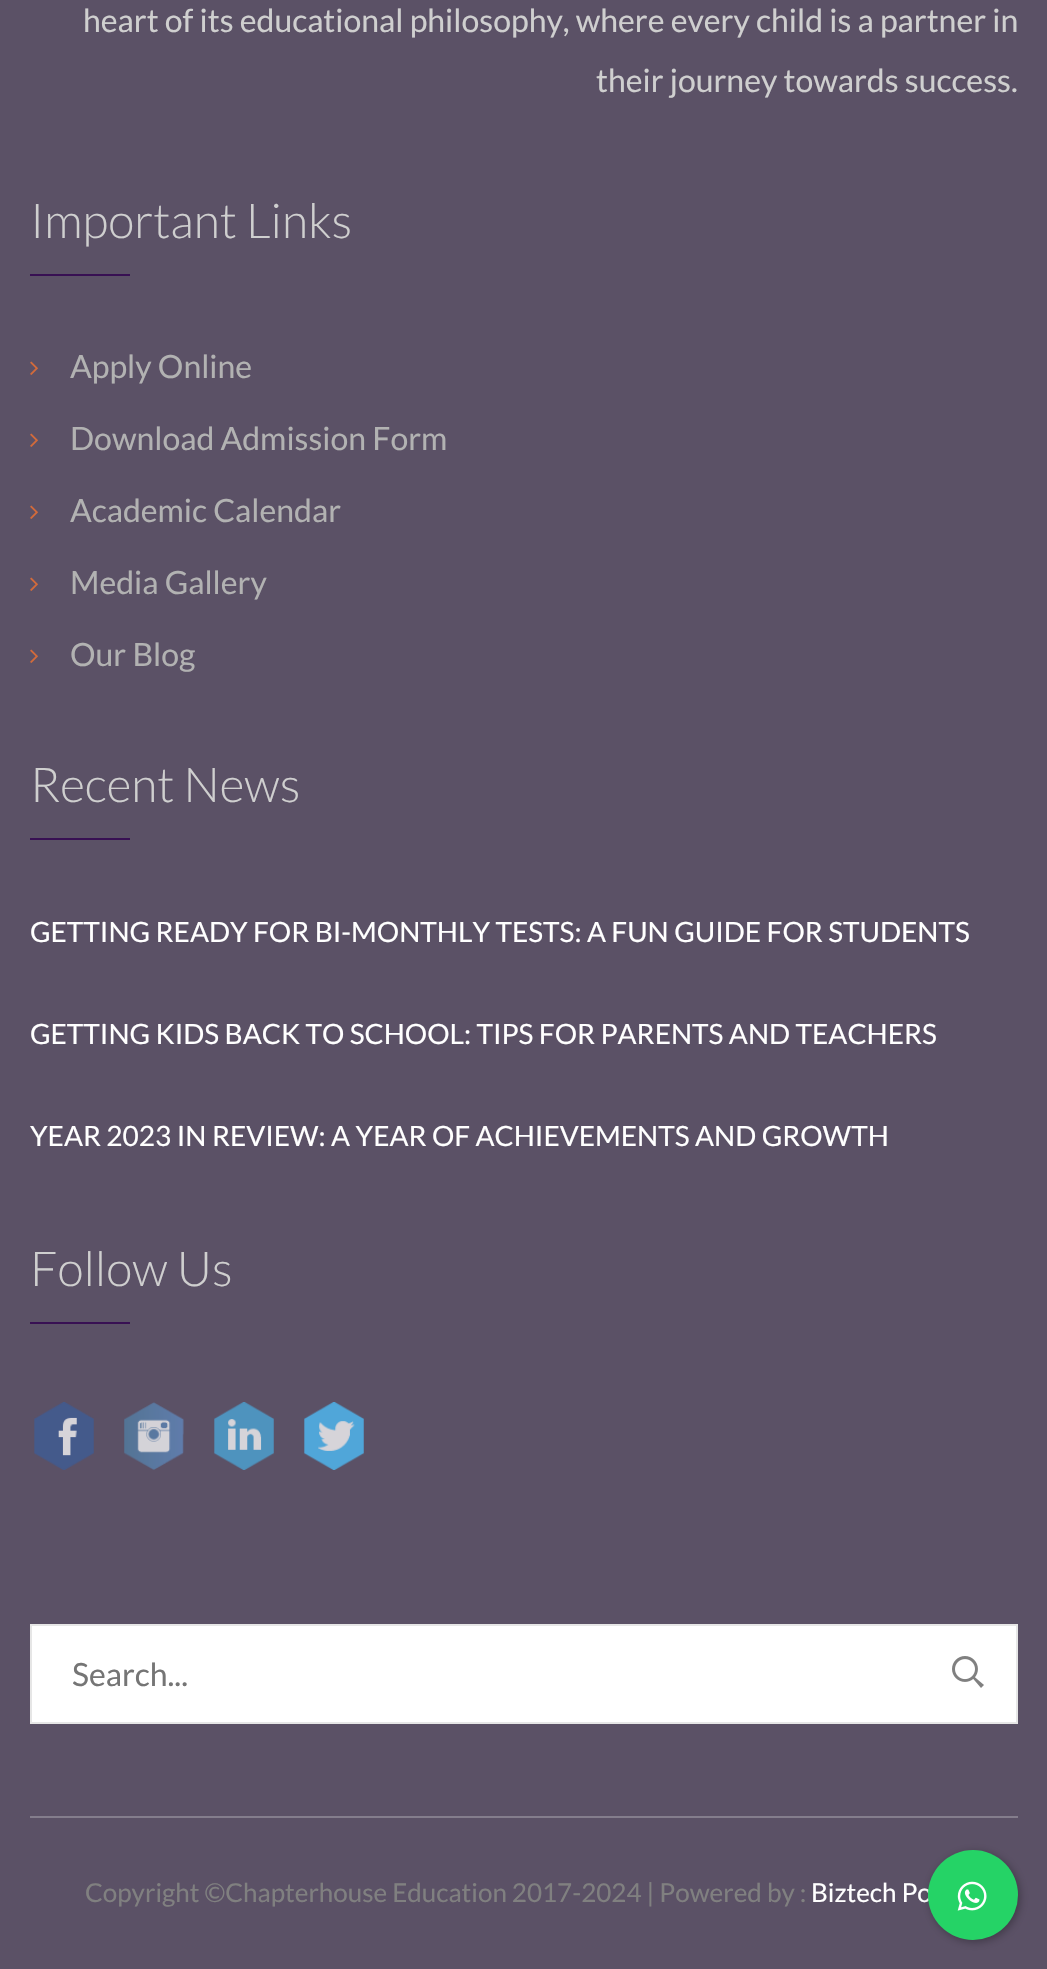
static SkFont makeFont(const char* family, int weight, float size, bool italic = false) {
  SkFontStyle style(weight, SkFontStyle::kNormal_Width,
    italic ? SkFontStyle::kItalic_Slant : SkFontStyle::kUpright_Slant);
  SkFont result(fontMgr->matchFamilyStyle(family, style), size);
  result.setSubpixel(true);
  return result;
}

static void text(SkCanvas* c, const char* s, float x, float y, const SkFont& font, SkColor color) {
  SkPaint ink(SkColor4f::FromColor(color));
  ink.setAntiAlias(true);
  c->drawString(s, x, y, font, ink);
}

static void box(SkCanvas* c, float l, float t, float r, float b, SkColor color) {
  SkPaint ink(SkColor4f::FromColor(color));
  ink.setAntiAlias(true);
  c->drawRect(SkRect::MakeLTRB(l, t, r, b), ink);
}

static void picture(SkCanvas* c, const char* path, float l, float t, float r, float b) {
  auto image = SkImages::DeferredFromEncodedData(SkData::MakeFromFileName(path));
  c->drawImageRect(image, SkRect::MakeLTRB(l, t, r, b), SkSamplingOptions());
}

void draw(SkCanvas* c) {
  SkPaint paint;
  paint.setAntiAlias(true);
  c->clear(0xff5b5166);
  box(c, 30, 1816, 1018, 1818, 0xff847d8c);
  SkFont face1 = makeFont("Lato", 400, 32);
  text(c, "heart of its educational philosophy, where every child is a partner in", 83, 32, face1, 0xffcfcfcf);
  text(c, "their journey towards success.", 596, 92, face1, 0xffcfcfcf);
  SkFont face2 = makeFont("Lato", 300, 48);
  text(c, "Important Links", 30, 238, face2, 0xffcfcfcf);
  box(c, 30, 274, 130, 276, 0xff381053);
  picture(c, "img_01.png", 30, 361, 38, 375);
  text(c, "Apply Online", 70, 378, face1, 0xffb2b2b2);
  picture(c, "img_01.png", 30, 433, 38, 447);
  text(c, "Download Admission Form", 70, 450, face1, 0xffb2b2b2);
  picture(c, "img_01.png", 30, 505, 38, 519);
  text(c, "Academic Calendar", 70, 522, face1, 0xffb2b2b2);
  picture(c, "img_01.png", 30, 577, 38, 591);
  text(c, "Media Gallery", 70, 594, face1, 0xffb2b2b2);
  picture(c, "img_01.png", 30, 649, 38, 663);
  text(c, "Our Blog", 70, 666, face1, 0xffb2b2b2);
  text(c, "Recent News", 30, 802, face2, 0xffcfcfcf);
  box(c, 30, 838, 130, 840, 0xff381053);
  SkFont face3 = makeFont("Lato", 400, 28);
  text(c, "GETTING READY FOR BI-MONTHLY TESTS: A FUN GUIDE FOR STUDENTS", 30, 942, face3, 0xffffffff);
  text(c, "GETTING KIDS BACK TO SCHOOL: TIPS FOR PARENTS AND TEACHERS", 30, 1044, face3, 0xffffffff);
  text(c, "YEAR 2023 IN REVIEW: A YEAR OF ACHIEVEMENTS AND GROWTH", 30, 1146, face3, 0xffffffff);
  text(c, "Follow Us", 30, 1286, face2, 0xffcfcfcf);
  box(c, 30, 1322, 130, 1324, 0xff381053);
  picture(c, "img_02.png", 34, 1402, 94, 1470);
  picture(c, "img_03.png", 124, 1402, 184, 1470);
  picture(c, "img_04.png", 214, 1402, 274, 1470);
  picture(c, "img_05.png", 304, 1402, 364, 1470);
  paint.setColor(0xffffffff);
  c->drawRect(SkRect::MakeLTRB(31, 1625, 1017, 1723), paint);
  paint.setStyle(SkPaint::kStroke_Style);
  paint.setStrokeWidth(2);
  paint.setColor(0xffe6e6e6);
  c->drawRect(SkRect::MakeLTRB(31, 1625, 1017, 1723), paint);
  text(c, "Search...", 72, 1686, face1, 0xff757575);
  picture(c, "img_06.png", 952, 1656, 984, 1688);
  SkFont face4 = makeFont("Lato", 400, 26);
  text(c, "Copyright ©Chapterhouse Education 2017-2024 | Powered by :", 85, 1902, face4, 0xff808080);
  text(c, "Biztech Po", 811, 1902, face4, 0xffffffff);
  paint.setStyle(SkPaint::kFill_Style);
  paint.setColor(0x4d000000);
  paint.setMaskFilter(SkMaskFilter::MakeBlur(kNormal_SkBlurStyle, 4));
  c->drawRoundRect(SkRect::MakeLTRB(930, 1852, 1020, 1942), 45, 45, paint);
  paint.setMaskFilter(nullptr);
  paint.setColor(0xff25d366);
  c->drawCircle(973, 1895, 45, paint);
  picture(c, "img_07.png", 957, 1881, 987, 1911);
}
